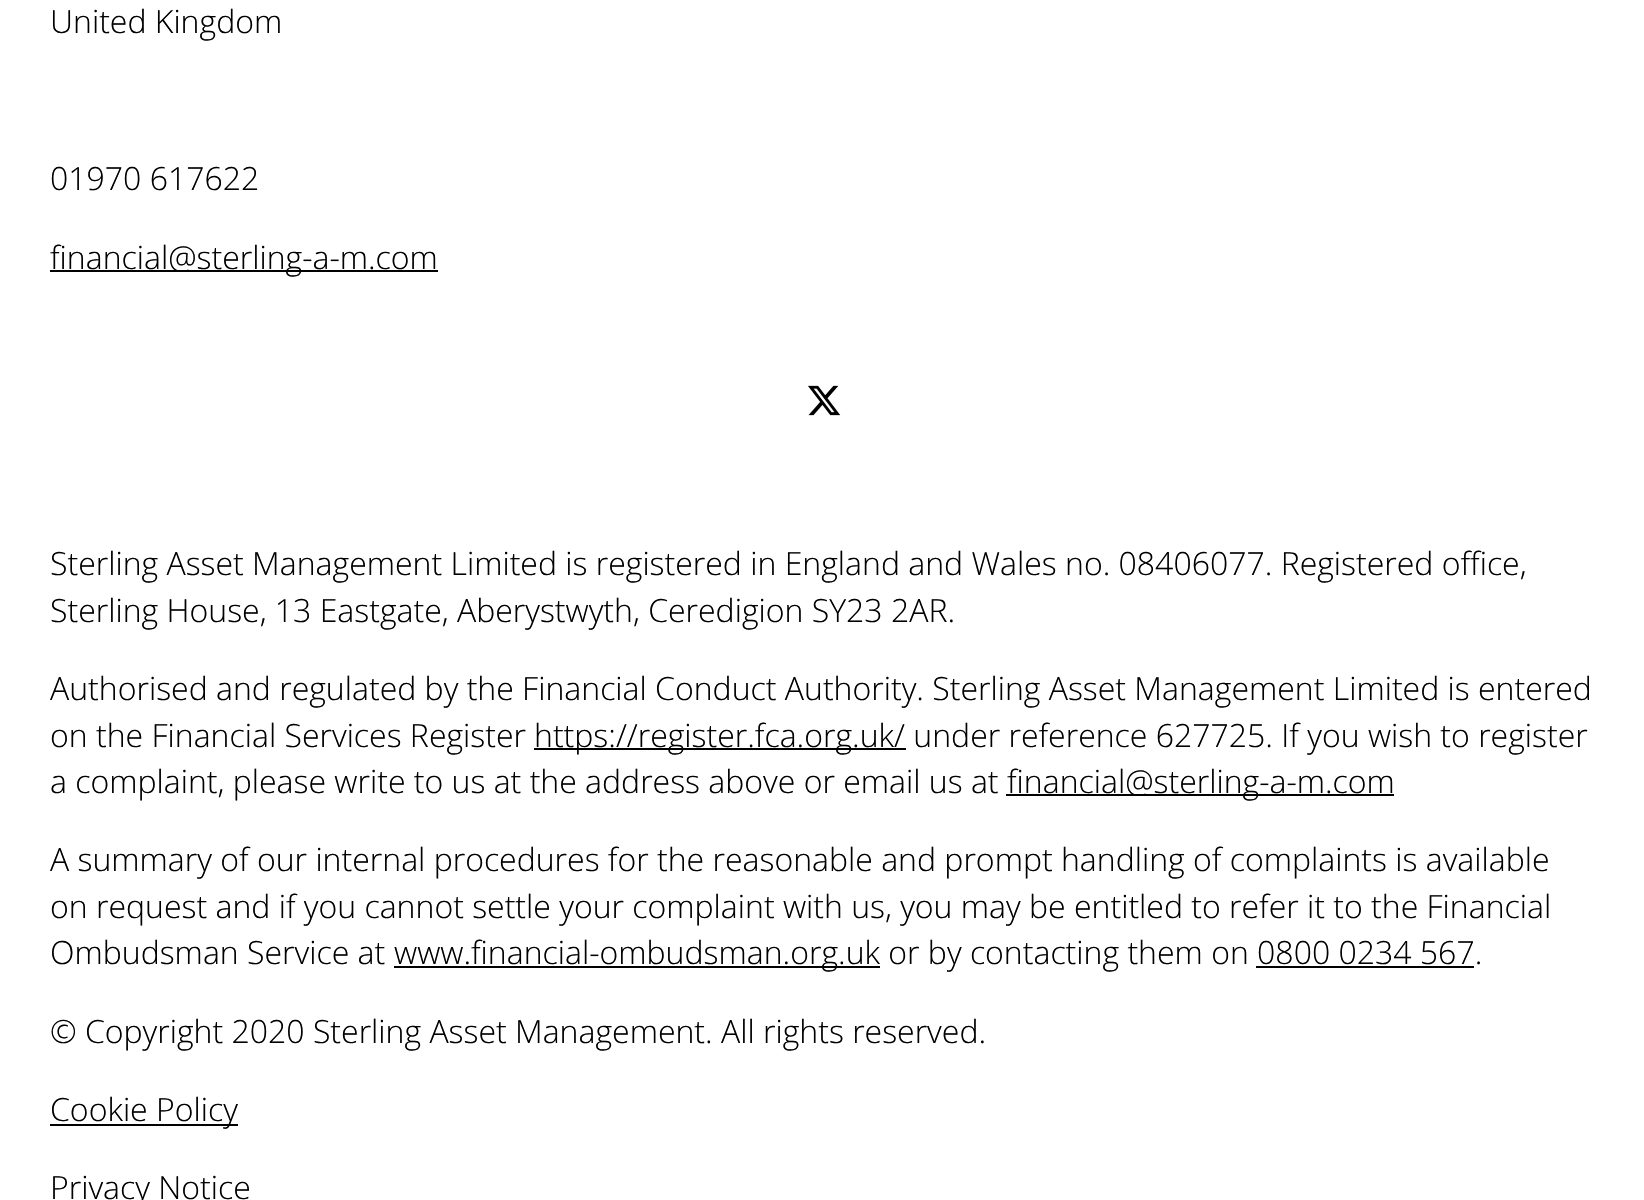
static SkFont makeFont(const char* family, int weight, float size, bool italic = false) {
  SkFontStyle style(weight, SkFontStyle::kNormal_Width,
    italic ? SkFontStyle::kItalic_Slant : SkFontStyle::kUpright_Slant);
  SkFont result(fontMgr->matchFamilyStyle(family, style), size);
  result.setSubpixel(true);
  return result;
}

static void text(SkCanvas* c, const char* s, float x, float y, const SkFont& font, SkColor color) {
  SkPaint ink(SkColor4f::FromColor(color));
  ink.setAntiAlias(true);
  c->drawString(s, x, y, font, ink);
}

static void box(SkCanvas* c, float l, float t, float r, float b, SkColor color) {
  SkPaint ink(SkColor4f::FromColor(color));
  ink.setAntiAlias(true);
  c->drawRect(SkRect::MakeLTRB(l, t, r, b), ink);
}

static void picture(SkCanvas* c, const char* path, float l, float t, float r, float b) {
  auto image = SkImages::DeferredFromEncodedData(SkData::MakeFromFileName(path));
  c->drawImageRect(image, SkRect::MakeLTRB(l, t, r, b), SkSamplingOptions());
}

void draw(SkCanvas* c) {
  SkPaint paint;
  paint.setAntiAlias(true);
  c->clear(0xffffffff);
  SkFont face1 = makeFont("Open Sans", 300, 32);
  text(c, "United Kingdom", 50, 33, face1, 0xff000000);
  text(c, "01970 617622", 50, 190, face1, 0xff000000);
  box(c, 50, 270, 438, 272, 0xff000000);
  text(c, "financial@sterling-a-m.com", 50, 269, face1, 0xff000000);
  picture(c, "img_01.png", 808, 385, 841, 416);
  text(c, "Sterling Asset Management Limited is registered in England and Wales no. 08406077. Registered office,", 50, 575, face1, 0xff000000);
  text(c, "Sterling House, 13 Eastgate, Aberystwyth, Ceredigion SY23 2AR.", 50, 622, face1, 0xff000000);
  text(c, "Authorised and regulated by the Financial Conduct Authority. Sterling Asset Management Limited is entered", 50, 700, face1, 0xff000000);
  text(c, "on the Financial Services Register", 50, 747, face1, 0xff000000);
  box(c, 534, 748, 906, 750, 0xff000000);
  text(c, "https://register.fca.org.uk/ under reference 627725. If you wish to register", 534, 747, face1, 0xff000000);
  text(c, "a complaint, please write to us at the address above or email us at", 50, 793, face1, 0xff000000);
  box(c, 1006, 794, 1394, 796, 0xff000000);
  text(c, "financial@sterling-a-m.com", 1007, 793, face1, 0xff000000);
  text(c, "A summary of our internal procedures for the reasonable and prompt handling of complaints is available", 50, 871, face1, 0xff000000);
  text(c, "on request and if you cannot settle your complaint with us, you may be entitled to refer it to the Financial", 50, 918, face1, 0xff000000);
  text(c, "Ombudsman Service at", 50, 964, face1, 0xff000000);
  box(c, 394, 966, 880, 968, 0xff000000);
  text(c, "www.financial-ombudsman.org.uk or by contacting them on 0800 0234 567.", 394, 964, face1, 0xff000000);
  box(c, 1256, 966, 1474, 968, 0xff000000);
  text(c, "© Copyright 2020 Sterling Asset Management. All rights reserved.", 50, 1043, face1, 0xff000000);
  box(c, 50, 1124, 238, 1126, 0xff000000);
  text(c, "Cookie Policy", 50, 1121, face1, 0xff000000);
  text(c, "Privacy Notice", 50, 1199, face1, 0xff000000);
}
